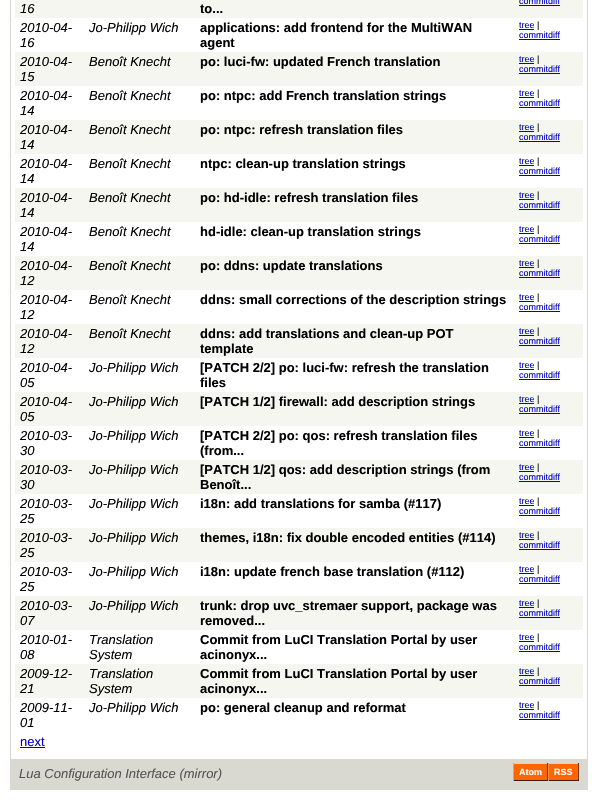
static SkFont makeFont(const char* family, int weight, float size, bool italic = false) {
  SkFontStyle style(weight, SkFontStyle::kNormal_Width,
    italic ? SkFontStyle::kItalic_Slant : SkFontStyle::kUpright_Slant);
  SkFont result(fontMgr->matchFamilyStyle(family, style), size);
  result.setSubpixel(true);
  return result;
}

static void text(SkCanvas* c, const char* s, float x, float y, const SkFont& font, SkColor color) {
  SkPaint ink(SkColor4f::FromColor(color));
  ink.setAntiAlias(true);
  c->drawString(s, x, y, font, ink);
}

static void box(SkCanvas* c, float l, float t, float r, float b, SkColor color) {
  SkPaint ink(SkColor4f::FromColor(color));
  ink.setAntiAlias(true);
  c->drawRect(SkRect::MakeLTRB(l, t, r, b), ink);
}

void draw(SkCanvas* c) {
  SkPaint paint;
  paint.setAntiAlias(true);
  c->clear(0xffffffff);
  paint.setStyle(SkPaint::kStroke_Style);
  paint.setStrokeWidth(1);
  paint.setColor(0xffd9d8d1);
  c->drawRect(SkRect::MakeLTRB(10.5f, -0.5f, 587.5f, 789.5f), paint);
  box(c, 15, 0, 583, 18, 0xfff6f6f0);
  SkFont face1 = makeFont("Liberation Sans", 400, 9);
  text(c, "commitdiff", 519, 4, face1, 0xff0000cc);
  box(c, 519, 5, 560, 6, 0xff0000cc);
  SkFont face2 = makeFont("Liberation Sans", 400, 13, true);
  text(c, "16", 20, 13, face2, 0xff000000);
  SkFont face3 = makeFont("Liberation Sans", 700, 13);
  text(c, "to...", 200, 13, face3, 0xff000000);
  text(c, "2010-04-", 20, 32, face2, 0xff000000);
  text(c, "16", 20, 47, face2, 0xff000000);
  text(c, "Jo-Philipp Wich", 89, 32, face2, 0xff000000);
  text(c, "applications: add frontend for the MultiWAN", 200, 32, face3, 0xff000000);
  text(c, "agent", 200, 47, face3, 0xff000000);
  text(c, "tree", 519, 28, face1, 0xff0000cc);
  box(c, 519, 29, 534, 30, 0xff0000cc);
  text(c, "|", 537, 28, face1, 0xff000000);
  text(c, "commitdiff", 519, 38, face1, 0xff0000cc);
  box(c, 519, 39, 560, 40, 0xff0000cc);
  box(c, 15, 52, 583, 86, 0xfff6f6f0);
  text(c, "2010-04-", 20, 66, face2, 0xff000000);
  text(c, "15", 20, 81, face2, 0xff000000);
  text(c, "Benoît Knecht", 89, 66, face2, 0xff000000);
  text(c, "po: luci-fw: updated French translation", 200, 66, face3, 0xff000000);
  text(c, "tree", 519, 62, face1, 0xff0000cc);
  box(c, 519, 63, 534, 64, 0xff0000cc);
  text(c, "|", 537, 62, face1, 0xff000000);
  text(c, "commitdiff", 519, 72, face1, 0xff0000cc);
  box(c, 519, 73, 560, 74, 0xff0000cc);
  text(c, "2010-04-", 20, 100, face2, 0xff000000);
  text(c, "14", 20, 115, face2, 0xff000000);
  text(c, "Benoît Knecht", 89, 100, face2, 0xff000000);
  text(c, "po: ntpc: add French translation strings", 200, 100, face3, 0xff000000);
  text(c, "tree", 519, 96, face1, 0xff0000cc);
  box(c, 519, 97, 534, 98, 0xff0000cc);
  text(c, "|", 537, 96, face1, 0xff000000);
  text(c, "commitdiff", 519, 106, face1, 0xff0000cc);
  box(c, 519, 107, 560, 108, 0xff0000cc);
  box(c, 15, 120, 583, 154, 0xfff6f6f0);
  text(c, "2010-04-", 20, 134, face2, 0xff000000);
  text(c, "14", 20, 149, face2, 0xff000000);
  text(c, "Benoît Knecht", 89, 134, face2, 0xff000000);
  text(c, "po: ntpc: refresh translation files", 200, 134, face3, 0xff000000);
  text(c, "tree", 519, 130, face1, 0xff0000cc);
  box(c, 519, 131, 534, 132, 0xff0000cc);
  text(c, "|", 537, 130, face1, 0xff000000);
  text(c, "commitdiff", 519, 140, face1, 0xff0000cc);
  box(c, 519, 141, 560, 142, 0xff0000cc);
  text(c, "2010-04-", 20, 168, face2, 0xff000000);
  text(c, "14", 20, 183, face2, 0xff000000);
  text(c, "Benoît Knecht", 89, 168, face2, 0xff000000);
  text(c, "ntpc: clean-up translation strings", 200, 168, face3, 0xff000000);
  text(c, "tree", 519, 164, face1, 0xff0000cc);
  box(c, 519, 165, 534, 166, 0xff0000cc);
  text(c, "|", 537, 164, face1, 0xff000000);
  text(c, "commitdiff", 519, 174, face1, 0xff0000cc);
  box(c, 519, 175, 560, 176, 0xff0000cc);
  box(c, 15, 188, 583, 222, 0xfff6f6f0);
  text(c, "2010-04-", 20, 202, face2, 0xff000000);
  text(c, "14", 20, 217, face2, 0xff000000);
  text(c, "Benoît Knecht", 89, 202, face2, 0xff000000);
  text(c, "po: hd-idle: refresh translation files", 200, 202, face3, 0xff000000);
  text(c, "tree", 519, 198, face1, 0xff0000cc);
  box(c, 519, 199, 534, 200, 0xff0000cc);
  text(c, "|", 537, 198, face1, 0xff000000);
  text(c, "commitdiff", 519, 208, face1, 0xff0000cc);
  box(c, 519, 209, 560, 210, 0xff0000cc);
  text(c, "2010-04-", 20, 236, face2, 0xff000000);
  text(c, "14", 20, 251, face2, 0xff000000);
  text(c, "Benoît Knecht", 89, 236, face2, 0xff000000);
  text(c, "hd-idle: clean-up translation strings", 200, 236, face3, 0xff000000);
  text(c, "tree", 519, 232, face1, 0xff0000cc);
  box(c, 519, 233, 534, 234, 0xff0000cc);
  text(c, "|", 537, 232, face1, 0xff000000);
  text(c, "commitdiff", 519, 242, face1, 0xff0000cc);
  box(c, 519, 243, 560, 244, 0xff0000cc);
  box(c, 15, 256, 583, 290, 0xfff6f6f0);
  text(c, "2010-04-", 20, 270, face2, 0xff000000);
  text(c, "12", 20, 285, face2, 0xff000000);
  text(c, "Benoît Knecht", 89, 270, face2, 0xff000000);
  text(c, "po: ddns: update translations", 200, 270, face3, 0xff000000);
  text(c, "tree", 519, 266, face1, 0xff0000cc);
  box(c, 519, 267, 534, 268, 0xff0000cc);
  text(c, "|", 537, 266, face1, 0xff000000);
  text(c, "commitdiff", 519, 276, face1, 0xff0000cc);
  box(c, 519, 277, 560, 278, 0xff0000cc);
  text(c, "2010-04-", 20, 304, face2, 0xff000000);
  text(c, "12", 20, 319, face2, 0xff000000);
  text(c, "Benoît Knecht", 89, 304, face2, 0xff000000);
  text(c, "ddns: small corrections of the description strings", 200, 304, face3, 0xff000000);
  text(c, "tree", 519, 300, face1, 0xff0000cc);
  box(c, 519, 301, 534, 302, 0xff0000cc);
  text(c, "|", 537, 300, face1, 0xff000000);
  text(c, "commitdiff", 519, 310, face1, 0xff0000cc);
  box(c, 519, 311, 560, 312, 0xff0000cc);
  box(c, 15, 324, 583, 358, 0xfff6f6f0);
  text(c, "2010-04-", 20, 338, face2, 0xff000000);
  text(c, "12", 20, 353, face2, 0xff000000);
  text(c, "Benoît Knecht", 89, 338, face2, 0xff000000);
  text(c, "ddns: add translations and clean-up POT", 200, 338, face3, 0xff000000);
  text(c, "template", 200, 353, face3, 0xff000000);
  text(c, "tree", 519, 334, face1, 0xff0000cc);
  box(c, 519, 335, 534, 336, 0xff0000cc);
  text(c, "|", 537, 334, face1, 0xff000000);
  text(c, "commitdiff", 519, 344, face1, 0xff0000cc);
  box(c, 519, 345, 560, 346, 0xff0000cc);
  text(c, "2010-04-", 20, 372, face2, 0xff000000);
  text(c, "05", 20, 387, face2, 0xff000000);
  text(c, "Jo-Philipp Wich", 89, 372, face2, 0xff000000);
  text(c, "[PATCH 2/2] po: luci-fw: refresh the translation", 200, 372, face3, 0xff000000);
  text(c, "files", 200, 387, face3, 0xff000000);
  text(c, "tree", 519, 368, face1, 0xff0000cc);
  box(c, 519, 369, 534, 370, 0xff0000cc);
  text(c, "|", 537, 368, face1, 0xff000000);
  text(c, "commitdiff", 519, 378, face1, 0xff0000cc);
  box(c, 519, 379, 560, 380, 0xff0000cc);
  box(c, 15, 392, 583, 426, 0xfff6f6f0);
  text(c, "2010-04-", 20, 406, face2, 0xff000000);
  text(c, "05", 20, 421, face2, 0xff000000);
  text(c, "Jo-Philipp Wich", 89, 406, face2, 0xff000000);
  text(c, "[PATCH 1/2] firewall: add description strings", 200, 406, face3, 0xff000000);
  text(c, "tree", 519, 402, face1, 0xff0000cc);
  box(c, 519, 403, 534, 404, 0xff0000cc);
  text(c, "|", 537, 402, face1, 0xff000000);
  text(c, "commitdiff", 519, 412, face1, 0xff0000cc);
  box(c, 519, 413, 560, 414, 0xff0000cc);
  text(c, "2010-03-", 20, 440, face2, 0xff000000);
  text(c, "30", 20, 455, face2, 0xff000000);
  text(c, "Jo-Philipp Wich", 89, 440, face2, 0xff000000);
  text(c, "[PATCH 2/2] po: qos: refresh translation files", 200, 440, face3, 0xff000000);
  text(c, "(from...", 200, 455, face3, 0xff000000);
  text(c, "tree", 519, 436, face1, 0xff0000cc);
  box(c, 519, 437, 534, 438, 0xff0000cc);
  text(c, "|", 537, 436, face1, 0xff000000);
  text(c, "commitdiff", 519, 446, face1, 0xff0000cc);
  box(c, 519, 447, 560, 448, 0xff0000cc);
  box(c, 15, 460, 583, 494, 0xfff6f6f0);
  text(c, "2010-03-", 20, 474, face2, 0xff000000);
  text(c, "30", 20, 489, face2, 0xff000000);
  text(c, "Jo-Philipp Wich", 89, 474, face2, 0xff000000);
  text(c, "[PATCH 1/2] qos: add description strings (from", 200, 474, face3, 0xff000000);
  text(c, "Benoît...", 200, 489, face3, 0xff000000);
  text(c, "tree", 519, 470, face1, 0xff0000cc);
  box(c, 519, 471, 534, 472, 0xff0000cc);
  text(c, "|", 537, 470, face1, 0xff000000);
  text(c, "commitdiff", 519, 480, face1, 0xff0000cc);
  box(c, 519, 481, 560, 482, 0xff0000cc);
  text(c, "2010-03-", 20, 508, face2, 0xff000000);
  text(c, "25", 20, 523, face2, 0xff000000);
  text(c, "Jo-Philipp Wich", 89, 508, face2, 0xff000000);
  text(c, "i18n: add translations for samba (#117)", 200, 508, face3, 0xff000000);
  text(c, "tree", 519, 504, face1, 0xff0000cc);
  box(c, 519, 505, 534, 506, 0xff0000cc);
  text(c, "|", 537, 504, face1, 0xff000000);
  text(c, "commitdiff", 519, 514, face1, 0xff0000cc);
  box(c, 519, 515, 560, 516, 0xff0000cc);
  box(c, 15, 528, 583, 562, 0xfff6f6f0);
  text(c, "2010-03-", 20, 542, face2, 0xff000000);
  text(c, "25", 20, 557, face2, 0xff000000);
  text(c, "Jo-Philipp Wich", 89, 542, face2, 0xff000000);
  text(c, "themes, i18n: fix double encoded entities (#114)", 200, 542, face3, 0xff000000);
  text(c, "tree", 519, 538, face1, 0xff0000cc);
  box(c, 519, 539, 534, 540, 0xff0000cc);
  text(c, "|", 537, 538, face1, 0xff000000);
  text(c, "commitdiff", 519, 548, face1, 0xff0000cc);
  box(c, 519, 549, 560, 550, 0xff0000cc);
  text(c, "2010-03-", 20, 576, face2, 0xff000000);
  text(c, "25", 20, 591, face2, 0xff000000);
  text(c, "Jo-Philipp Wich", 89, 576, face2, 0xff000000);
  text(c, "i18n: update french base translation (#112)", 200, 576, face3, 0xff000000);
  text(c, "tree", 519, 572, face1, 0xff0000cc);
  box(c, 519, 573, 534, 574, 0xff0000cc);
  text(c, "|", 537, 572, face1, 0xff000000);
  text(c, "commitdiff", 519, 582, face1, 0xff0000cc);
  box(c, 519, 583, 560, 584, 0xff0000cc);
  box(c, 15, 596, 583, 630, 0xfff6f6f0);
  text(c, "2010-03-", 20, 610, face2, 0xff000000);
  text(c, "07", 20, 625, face2, 0xff000000);
  text(c, "Jo-Philipp Wich", 89, 610, face2, 0xff000000);
  text(c, "trunk: drop uvc_stremaer support, package was", 200, 610, face3, 0xff000000);
  text(c, "removed...", 200, 625, face3, 0xff000000);
  text(c, "tree", 519, 606, face1, 0xff0000cc);
  box(c, 519, 607, 534, 608, 0xff0000cc);
  text(c, "|", 537, 606, face1, 0xff000000);
  text(c, "commitdiff", 519, 616, face1, 0xff0000cc);
  box(c, 519, 617, 560, 618, 0xff0000cc);
  text(c, "2010-01-", 20, 644, face2, 0xff000000);
  text(c, "08", 20, 659, face2, 0xff000000);
  text(c, "Translation", 89, 644, face2, 0xff000000);
  text(c, "System", 89, 659, face2, 0xff000000);
  text(c, "Commit from LuCI Translation Portal by user", 200, 644, face3, 0xff000000);
  text(c, "acinonyx...", 200, 659, face3, 0xff000000);
  text(c, "tree", 519, 640, face1, 0xff0000cc);
  box(c, 519, 641, 534, 642, 0xff0000cc);
  text(c, "|", 537, 640, face1, 0xff000000);
  text(c, "commitdiff", 519, 650, face1, 0xff0000cc);
  box(c, 519, 651, 560, 652, 0xff0000cc);
  box(c, 15, 664, 583, 698, 0xfff6f6f0);
  text(c, "2009-12-", 20, 678, face2, 0xff000000);
  text(c, "21", 20, 693, face2, 0xff000000);
  text(c, "Translation", 89, 678, face2, 0xff000000);
  text(c, "System", 89, 693, face2, 0xff000000);
  text(c, "Commit from LuCI Translation Portal by user", 200, 678, face3, 0xff000000);
  text(c, "acinonyx...", 200, 693, face3, 0xff000000);
  text(c, "tree", 519, 674, face1, 0xff0000cc);
  box(c, 519, 675, 534, 676, 0xff0000cc);
  text(c, "|", 537, 674, face1, 0xff000000);
  text(c, "commitdiff", 519, 684, face1, 0xff0000cc);
  box(c, 519, 685, 560, 686, 0xff0000cc);
  text(c, "2009-11-", 20, 712, face2, 0xff000000);
  text(c, "01", 20, 727, face2, 0xff000000);
  text(c, "Jo-Philipp Wich", 89, 712, face2, 0xff000000);
  text(c, "po: general cleanup and reformat", 200, 712, face3, 0xff000000);
  text(c, "tree", 519, 708, face1, 0xff0000cc);
  box(c, 519, 709, 534, 710, 0xff0000cc);
  text(c, "|", 537, 708, face1, 0xff000000);
  text(c, "commitdiff", 519, 718, face1, 0xff0000cc);
  box(c, 519, 719, 560, 720, 0xff0000cc);
  SkFont face4 = makeFont("Liberation Sans", 400, 13);
  text(c, "next", 20, 746, face4, 0xff0000cc);
  box(c, 20, 747, 45, 748, 0xff0000cc);
  box(c, 11, 759, 587, 789, 0xffd9d8d1);
  text(c, "Lua Configuration Interface (mirror)", 19, 778, face2, 0xff555555);
  box(c, 514, 764, 547, 780, 0xffff6600);
  box(c, 513, 763, 579, 764, 0xfffcc7a5);
  box(c, 547, 763, 548, 781, 0xff7d3302);
  box(c, 513, 780, 548, 781, 0xff3e1a01);
  box(c, 513, 763, 514, 781, 0xffff954e);
  SkFont face5 = makeFont("Liberation Sans", 700, 9);
  text(c, "Atom", 519, 775, face5, 0xffffffff);
  box(c, 549, 764, 578, 780, 0xffff6600);
  box(c, 578, 763, 579, 781, 0xff7d3302);
  box(c, 548, 780, 579, 781, 0xff3e1a01);
  box(c, 548, 763, 549, 781, 0xffff954e);
  text(c, "RSS", 554, 775, face5, 0xffffffff);
}
